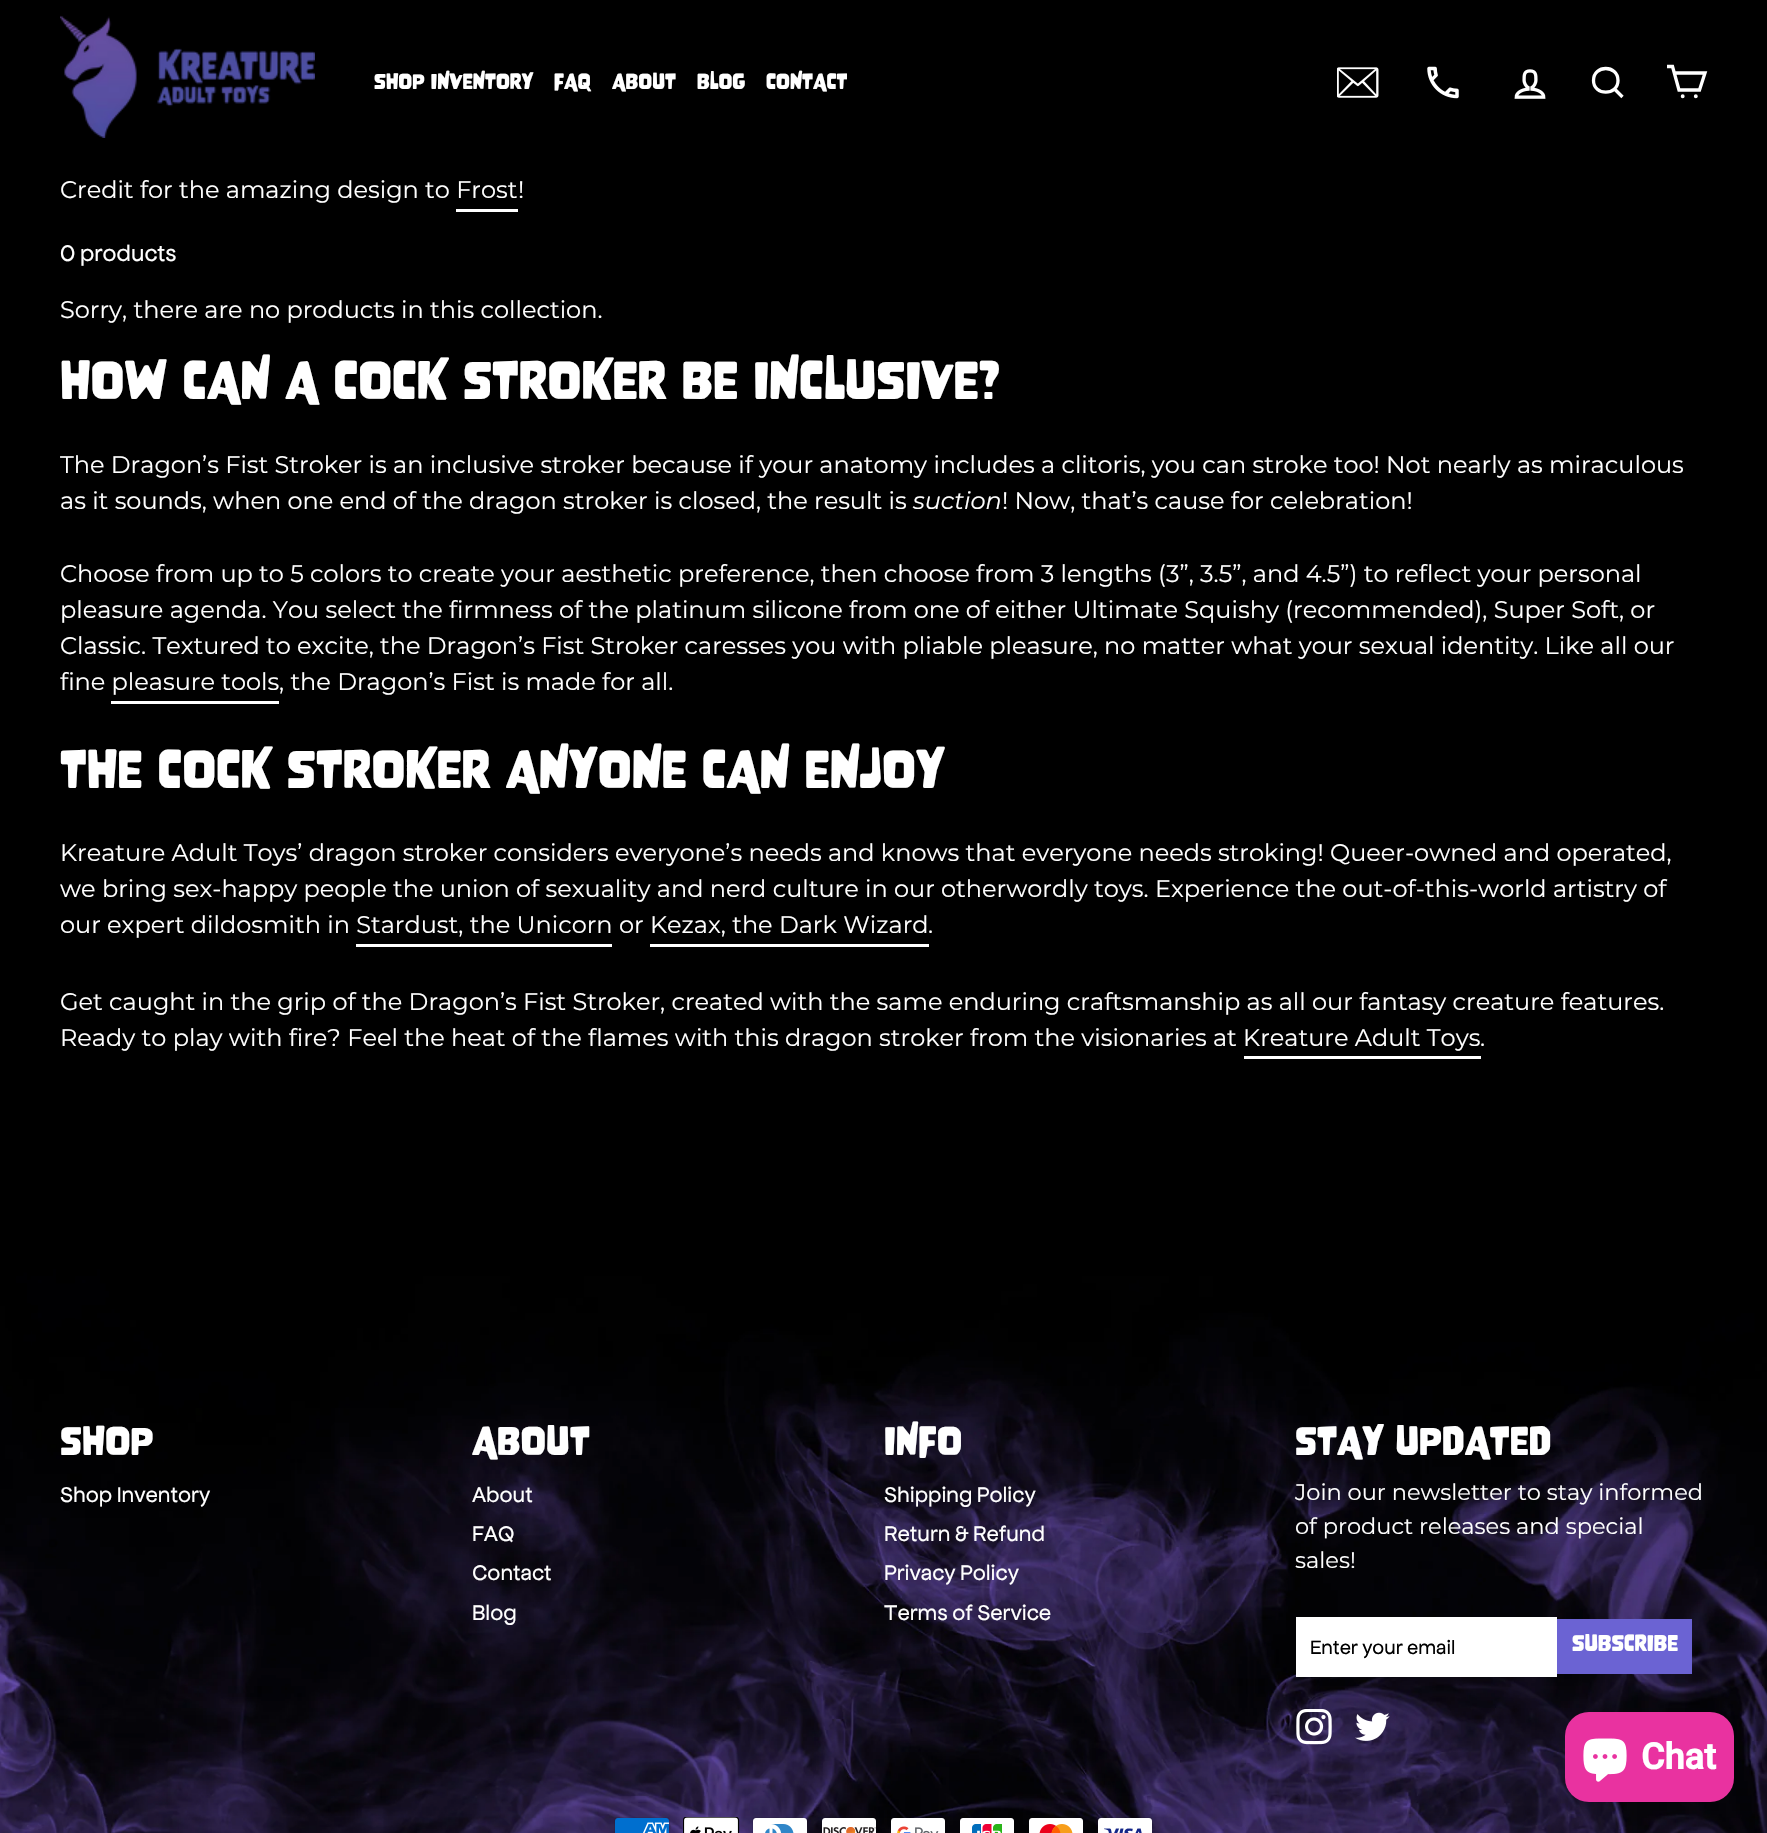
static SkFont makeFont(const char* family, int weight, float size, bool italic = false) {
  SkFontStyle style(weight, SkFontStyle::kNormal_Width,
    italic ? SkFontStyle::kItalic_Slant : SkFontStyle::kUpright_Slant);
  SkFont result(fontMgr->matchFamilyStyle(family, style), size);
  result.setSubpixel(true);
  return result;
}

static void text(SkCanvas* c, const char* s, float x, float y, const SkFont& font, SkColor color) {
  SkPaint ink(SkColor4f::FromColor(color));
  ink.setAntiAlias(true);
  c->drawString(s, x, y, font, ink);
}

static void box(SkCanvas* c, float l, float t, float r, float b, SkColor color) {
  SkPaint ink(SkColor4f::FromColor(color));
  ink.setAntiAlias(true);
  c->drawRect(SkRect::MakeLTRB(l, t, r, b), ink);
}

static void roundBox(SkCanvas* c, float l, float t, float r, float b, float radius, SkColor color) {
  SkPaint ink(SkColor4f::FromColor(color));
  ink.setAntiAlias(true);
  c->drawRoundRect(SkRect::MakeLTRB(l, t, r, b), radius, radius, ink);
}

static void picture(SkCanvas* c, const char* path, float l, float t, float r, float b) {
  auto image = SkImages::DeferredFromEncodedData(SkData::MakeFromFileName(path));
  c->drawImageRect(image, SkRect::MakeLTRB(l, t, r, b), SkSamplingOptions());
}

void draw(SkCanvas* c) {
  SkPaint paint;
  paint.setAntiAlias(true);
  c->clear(0xff000000);
  picture(c, "img_01.png", 60, 15, 315, 138);
  SkFont face1 = makeFont("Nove", 400, 19.5f);
  text(c, "SHOP INVENTORY", 374, 89, face1, 0xffffffff);
  text(c, "FAQ", 554, 89, face1, 0xffffffff);
  text(c, "ABOUT", 612, 89, face1, 0xffffffff);
  text(c, "BLOG", 697, 89, face1, 0xffffffff);
  text(c, "CONTACT", 766, 89, face1, 0xffffffff);
  picture(c, "img_02.png", 1337, 67, 1379, 98);
  picture(c, "img_03.png", 1427, 66, 1459, 99);
  picture(c, "img_04.png", 1514, 69, 1546, 99);
  paint.setStyle(SkPaint::kStroke_Style);
  paint.setStrokeWidth(3.3f);
  paint.setColor(0xffffffff);
  c->drawPath(SkPathBuilder().moveTo(1618, 80.5f).cubicTo(1618, 96, 1593.5f, 96, 1593.5f, 80.5f).cubicTo(1593.5f, 64.5f, 1618, 64.5f, 1618, 80.5f).close().moveTo(1622.5f, 97).lineTo(1614.5f, 89).detach(), paint);
  c->drawPath(SkPathBuilder().moveTo(1674, 73).lineTo(1705, 73).lineTo(1699.5f, 90).lineTo(1679, 90).lineTo(1672.5f, 66.5f).lineTo(1667, 66.5f).detach(), paint);
  paint.setStyle(SkPaint::kFill_Style);
  c->drawCircle(1682.7f, 96.3f, 1.3f, paint);
  paint.setStyle(SkPaint::kStroke_Style);
  paint.setStrokeWidth(1.3f);
  c->drawCircle(1682.7f, 96.3f, 1.3f, paint);
  paint.setStyle(SkPaint::kFill_Style);
  c->drawCircle(1695.8f, 96.3f, 1.3f, paint);
  paint.setStyle(SkPaint::kStroke_Style);
  c->drawCircle(1695.8f, 96.3f, 1.3f, paint);
  SkFont face2 = makeFont("Montserrat", 400, 24);
  text(c, "Credit for the amazing design to Frost", 60, 198, face2, 0xffffffff);
  text(c, "!", 518, 198, face2, 0xffffffff);
  box(c, 456, 209, 518, 212, 0xffffffff);
  SkFont face3 = makeFont("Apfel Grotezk", 400, 24);
  text(c, "0 products", 60, 261, face3, 0xffffffff);
  text(c, "Sorry, there are no products in this collection.", 60, 318, face2, 0xffffffff);
  SkFont face4 = makeFont("Nove", 400, 47.75f);
  text(c, "HOW CAN A COCK STROKER BE INCLUSIVE?", 60, 399, face4, 0xffffffff);
  text(c, "The Dragon’s Fist Stroker is an inclusive stroker because if your anatomy includes a clitoris, you can stroke too! Not nearly as miraculous", 60, 473, face2, 0xffffffff);
  text(c, "as it sounds, when one end of the dragon stroker is closed, the result is", 60, 509, face2, 0xffffffff);
  SkFont face5 = makeFont("Montserrat", 400, 24, true);
  text(c, "suction", 913, 509, face5, 0xffffffff);
  text(c, "! Now, that’s cause for celebration!", 1002, 509, face2, 0xffffffff);
  text(c, "Choose from up to 5 colors to create your aesthetic preference, then choose from 3 lengths (3”, 3.5”, and 4.5”) to reflect your personal", 60, 582, face2, 0xffffffff);
  text(c, "pleasure agenda. You select the firmness of the platinum silicone from one of either Ultimate Squishy (recommended), Super Soft, or", 60, 618, face2, 0xffffffff);
  text(c, "Classic. Textured to excite, the Dragon’s Fist Stroker caresses you with pliable pleasure, no matter what your sexual identity. Like all our", 60, 654, face2, 0xffffffff);
  text(c, "fine pleasure tools", 60, 690, face2, 0xffffffff);
  text(c, ", the Dragon’s Fist is made for all.", 279, 690, face2, 0xffffffff);
  box(c, 111, 701, 279, 704, 0xffffffff);
  text(c, "THE COCK STROKER ANYONE CAN ENJOY", 60, 788, face4, 0xffffffff);
  text(c, "Kreature Adult Toys’ dragon stroker considers everyone’s needs and knows that everyone needs stroking! Queer-owned and operated,", 60, 861, face2, 0xffffffff);
  text(c, "we bring sex-happy people the union of sexuality and nerd culture in our otherwordly toys. Experience the out-of-this-world artistry of", 60, 897, face2, 0xffffffff);
  text(c, "our expert dildosmith in Stardust, the Unicorn", 60, 933, face2, 0xffffffff);
  text(c, "or Kezax, the Dark Wizard", 619, 933, face2, 0xffffffff);
  text(c, ".", 928, 933, face2, 0xffffffff);
  box(c, 356, 944, 612, 947, 0xffffffff);
  box(c, 650, 944, 929, 947, 0xffffffff);
  text(c, "Get caught in the grip of the Dragon’s Fist Stroker, created with the same enduring craftsmanship as all our fantasy creature features.", 60, 1010, face2, 0xffffffff);
  text(c, "Ready to play with fire? Feel the heat of the flames with this dragon stroker from the visionaries at Kreature Adult Toys", 60, 1046, face2, 0xffffffff);
  text(c, ".", 1480, 1046, face2, 0xffffffff);
  box(c, 1244, 1056, 1481, 1059, 0xffffffff);
  picture(c, "img_05.png", 0, 1211, 1767, 1833);
  SkFont face6 = makeFont("Nove", 400, 36);
  text(c, "SHOP", 60, 1455, face6, 0xffffffff);
  SkFont face7 = makeFont("Apfel Grotezk", 400, 22.5f);
  text(c, "Shop Inventory", 60, 1502, face7, 0xffffffff);
  text(c, "ABOUT", 472, 1455, face6, 0xffffffff);
  text(c, "About", 472, 1502, face7, 0xffffffff);
  text(c, "FAQ", 472, 1541, face7, 0xffffffff);
  text(c, "Contact", 472, 1580, face7, 0xffffffff);
  text(c, "Blog", 472, 1620, face7, 0xffffffff);
  text(c, "INFO", 884, 1455, face6, 0xffffffff);
  text(c, "Shipping Policy", 884, 1502, face7, 0xffffffff);
  text(c, "Return & Refund", 884, 1541, face7, 0xffffffff);
  text(c, "Privacy Policy", 884, 1580, face7, 0xffffffff);
  text(c, "Terms of Service", 884, 1620, face7, 0xffffffff);
  text(c, "STAY UPDATED", 1295, 1455, face6, 0xffffffff);
  SkFont face8 = makeFont("Montserrat", 400, 22.5f);
  text(c, "Join our newsletter to stay informed", 1295, 1500, face8, 0xffffffff);
  text(c, "of product releases and special", 1295, 1534, face8, 0xffffffff);
  text(c, "sales!", 1295, 1568, face8, 0xffffffff);
  box(c, 1296, 1617, 1557, 1677, 0xffffffff);
  SkFont face9 = makeFont("Apfel Grotezk", 400, 20.5f);
  text(c, "Enter your email", 1310, 1654, face9, 0xff000000);
  box(c, 1557, 1619, 1692, 1674, 0xff6b63d3);
  SkFont face10 = makeFont("Nove", 400, 20.5f);
  text(c, "SUBSCRIBE", 1572, 1651, face10, 0xffffffff);
  picture(c, "img_06.png", 1296, 1709, 1332, 1745);
  picture(c, "img_07.png", 1355, 1712, 1390, 1741);
  picture(c, "img_08.png", 614, 1817, 671, 1833);
  picture(c, "img_09.png", 683, 1817, 740, 1833);
  picture(c, "img_10.png", 752, 1817, 807, 1833);
  picture(c, "img_11.png", 822, 1818, 876, 1833);
  picture(c, "img_12.png", 891, 1818, 945, 1833);
  picture(c, "img_13.png", 960, 1818, 1014, 1833);
  picture(c, "img_14.png", 1029, 1818, 1083, 1833);
  picture(c, "img_15.png", 1098, 1817, 1153, 1833);
  paint.setStyle(SkPaint::kFill_Style);
  paint.setColor(0x26000000);
  paint.setMaskFilter(SkMaskFilter::MakeBlur(kNormal_SkBlurStyle, 4));
  c->drawRoundRect(SkRect::MakeLTRB(1565, 1712, 1734, 1802), 24, 24, paint);
  paint.setMaskFilter(nullptr);
  roundBox(c, 1565, 1712, 1734, 1802, 24, 0xffe932a0);
  picture(c, "img_16.png", 1583, 1738, 1627, 1782);
  SkFont face11 = makeFont("Roboto", 700, 36);
  text(c, "Chat", 1641, 1769, face11, 0xffffffff);
}
